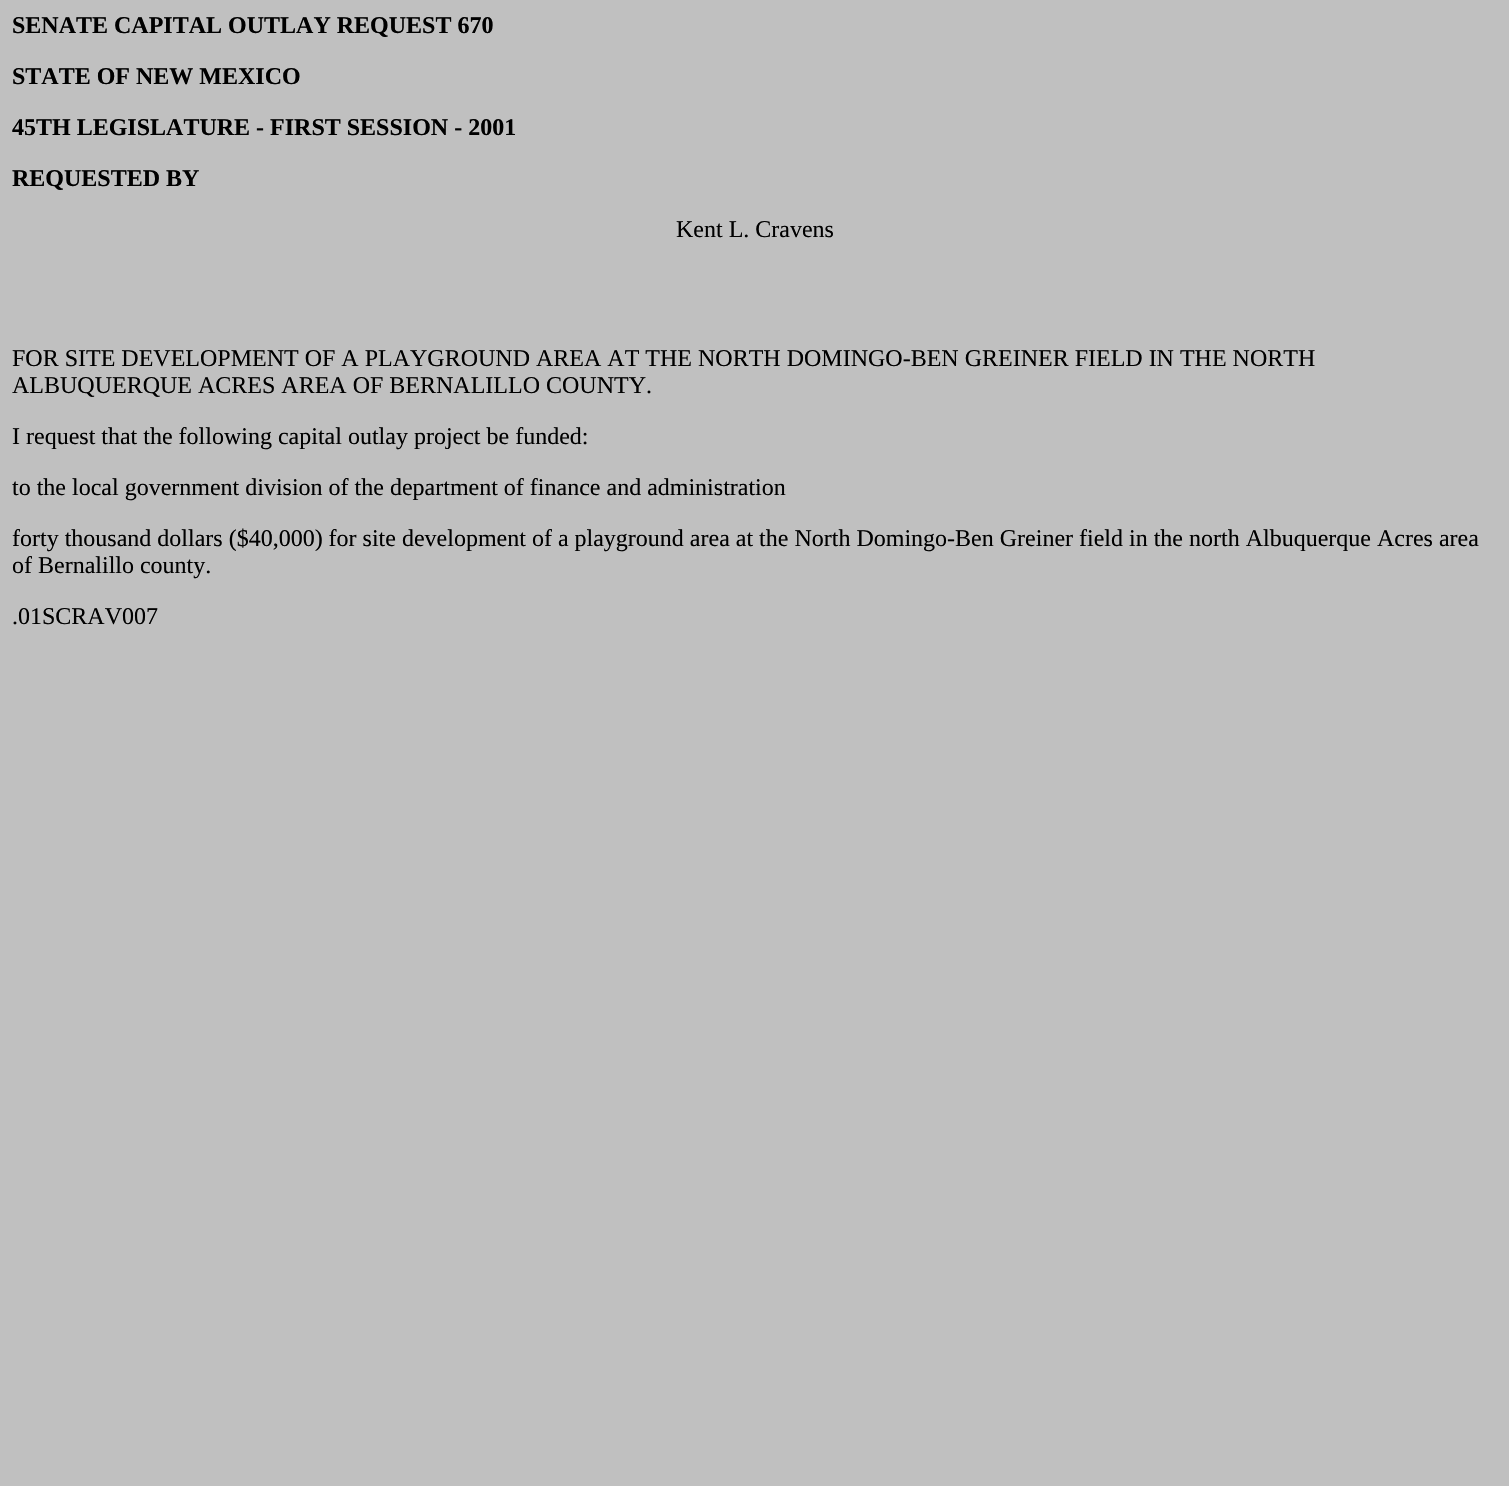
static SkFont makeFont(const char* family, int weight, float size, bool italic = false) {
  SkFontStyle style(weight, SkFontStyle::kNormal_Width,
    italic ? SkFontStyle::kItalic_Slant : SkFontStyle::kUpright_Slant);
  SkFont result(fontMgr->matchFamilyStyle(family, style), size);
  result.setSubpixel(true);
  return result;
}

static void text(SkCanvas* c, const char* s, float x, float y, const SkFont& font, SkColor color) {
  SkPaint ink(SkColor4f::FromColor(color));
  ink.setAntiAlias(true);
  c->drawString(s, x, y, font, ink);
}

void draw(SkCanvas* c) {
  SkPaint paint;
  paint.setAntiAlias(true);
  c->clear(0xffc0c0c0);
  SkFont face1 = makeFont("Liberation Serif", 700, 24);
  text(c, "SENATE CAPITAL OUTLAY REQUEST 670", 12, 33, face1, 0xff000000);
  text(c, "STATE OF NEW MEXICO", 12, 84, face1, 0xff000000);
  text(c, "45TH LEGISLATURE - FIRST SESSION - 2001", 12, 135, face1, 0xff000000);
  text(c, "REQUESTED BY", 12, 186, face1, 0xff000000);
  SkFont face2 = makeFont("Liberation Serif", 400, 24);
  text(c, "Kent L. Cravens", 676, 237, face2, 0xff000000);
  text(c, "FOR SITE DEVELOPMENT OF A PLAYGROUND AREA AT THE NORTH DOMINGO-BEN GREINER FIELD IN THE NORTH", 12, 366, face2, 0xff000000);
  text(c, "ALBUQUERQUE ACRES AREA OF BERNALILLO COUNTY.", 12, 393, face2, 0xff000000);
  text(c, "I request that the following capital outlay project be funded:", 12, 444, face2, 0xff000000);
  text(c, "to the local government division of the department of finance and administration", 12, 495, face2, 0xff000000);
  text(c, "forty thousand dollars ($40,000) for site development of a playground area at the North Domingo-Ben Greiner field in the north Albuquerque Acres area", 12, 546, face2, 0xff000000);
  text(c, "of Bernalillo county.", 12, 573, face2, 0xff000000);
  text(c, ".01SCRAV007", 12, 624, face2, 0xff000000);
}
